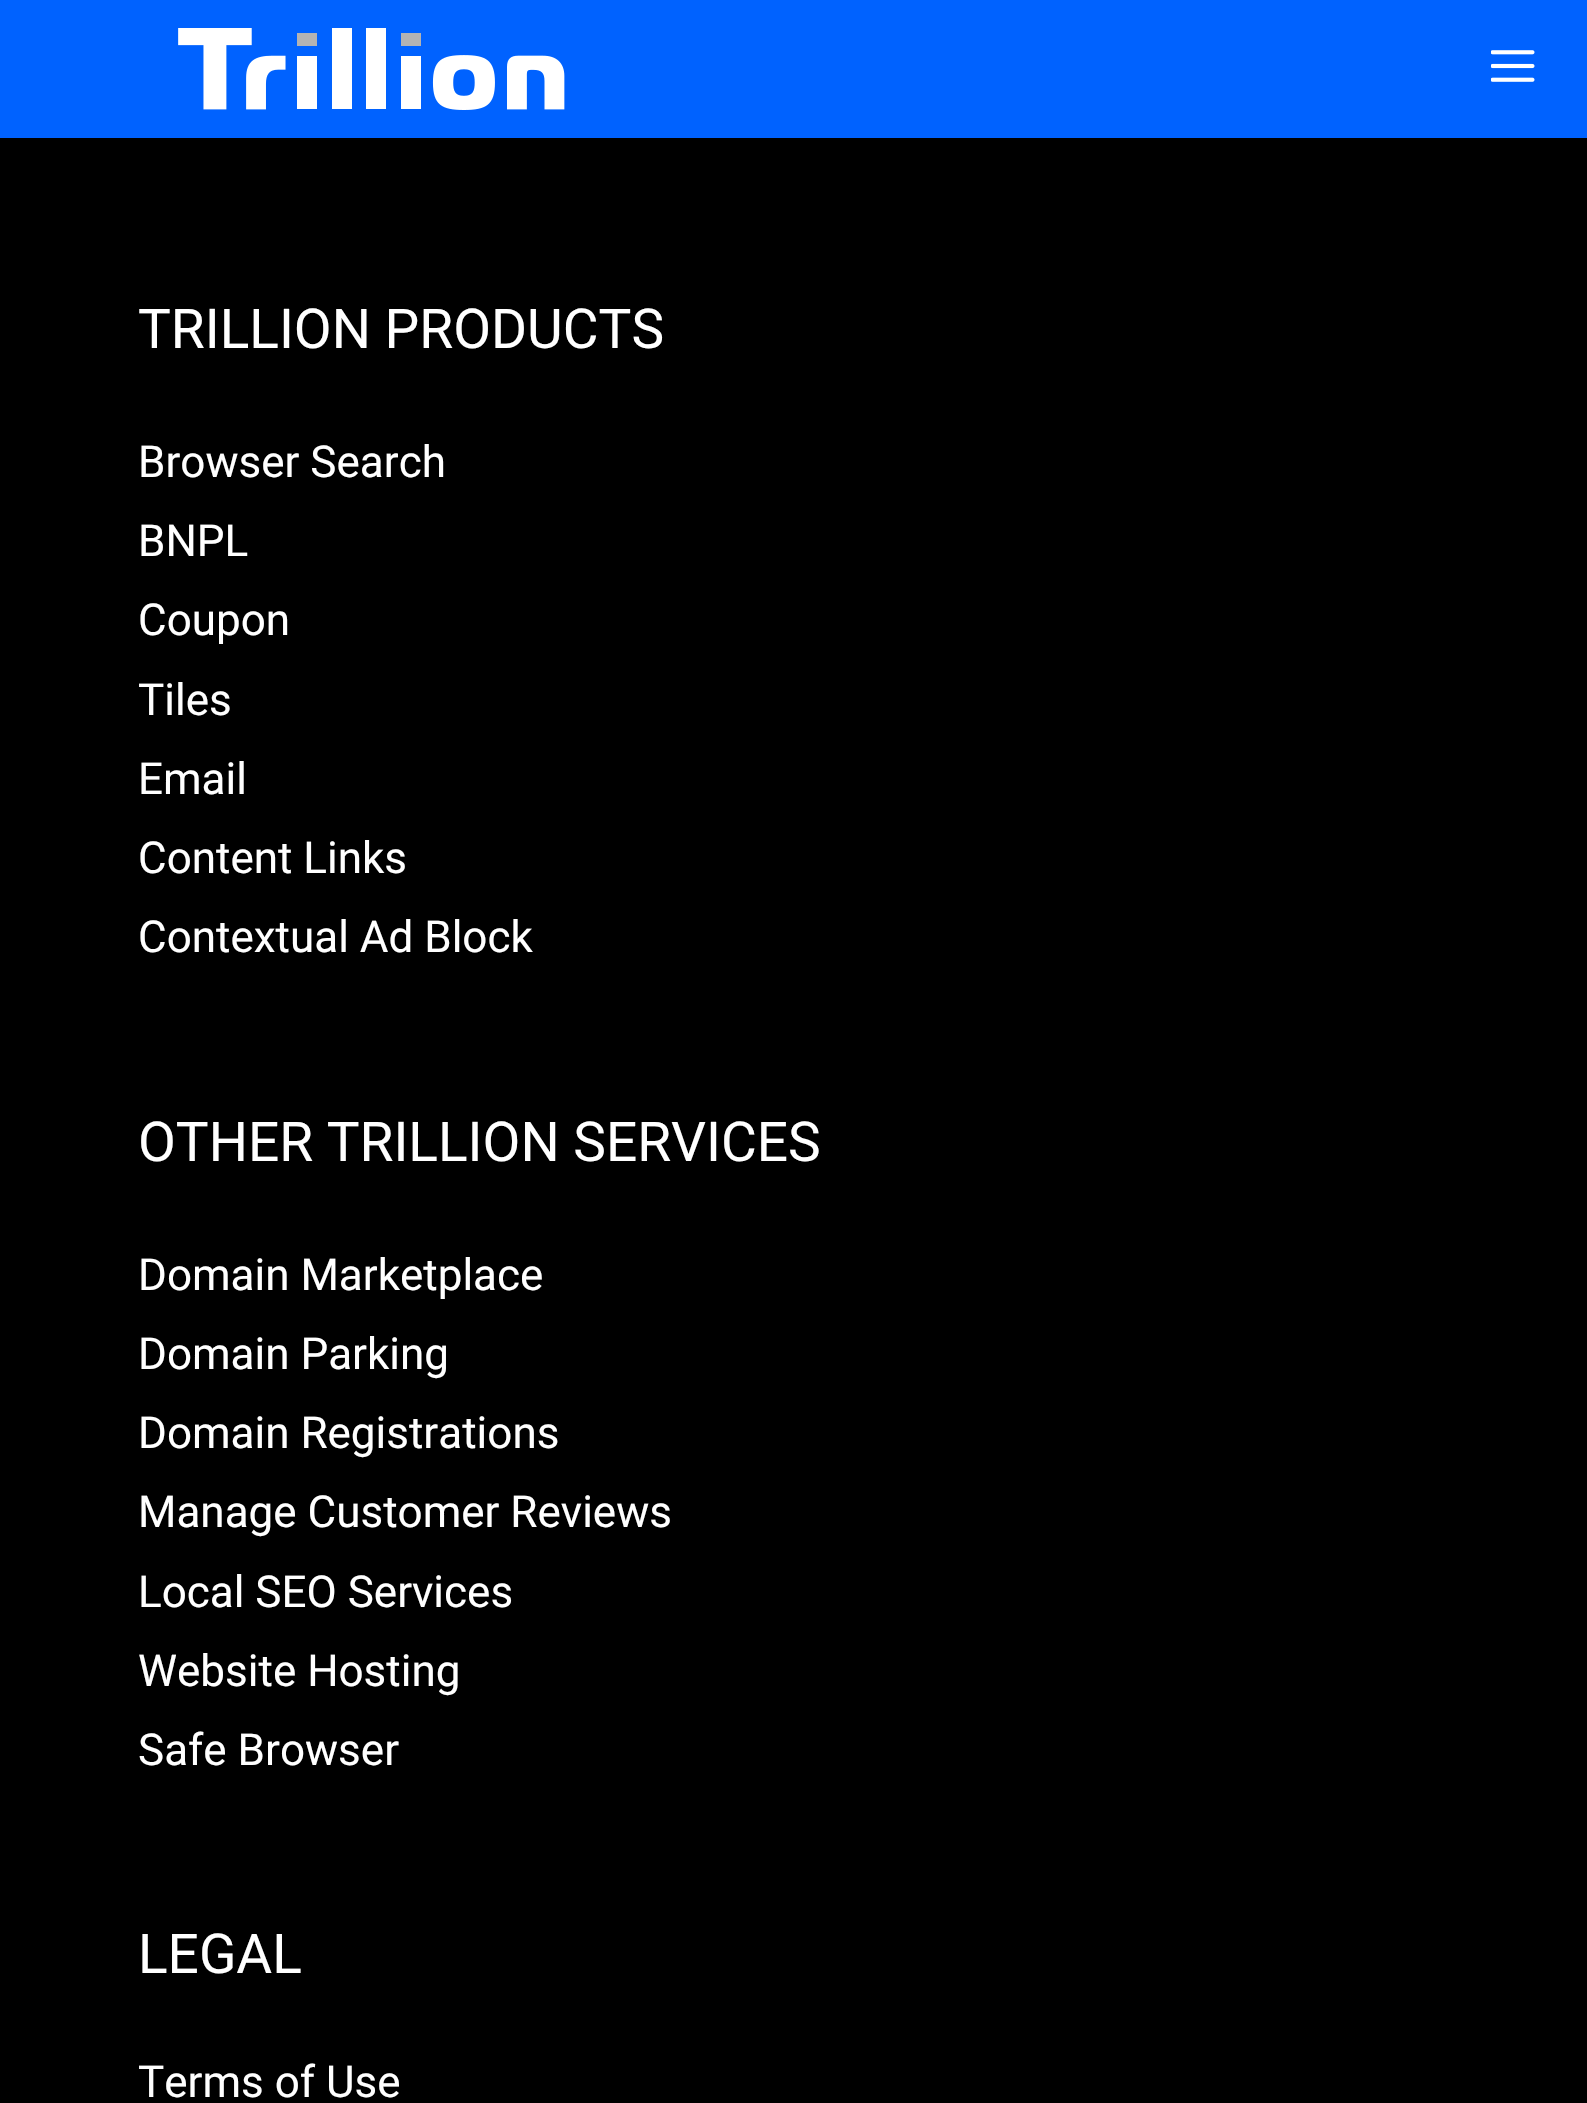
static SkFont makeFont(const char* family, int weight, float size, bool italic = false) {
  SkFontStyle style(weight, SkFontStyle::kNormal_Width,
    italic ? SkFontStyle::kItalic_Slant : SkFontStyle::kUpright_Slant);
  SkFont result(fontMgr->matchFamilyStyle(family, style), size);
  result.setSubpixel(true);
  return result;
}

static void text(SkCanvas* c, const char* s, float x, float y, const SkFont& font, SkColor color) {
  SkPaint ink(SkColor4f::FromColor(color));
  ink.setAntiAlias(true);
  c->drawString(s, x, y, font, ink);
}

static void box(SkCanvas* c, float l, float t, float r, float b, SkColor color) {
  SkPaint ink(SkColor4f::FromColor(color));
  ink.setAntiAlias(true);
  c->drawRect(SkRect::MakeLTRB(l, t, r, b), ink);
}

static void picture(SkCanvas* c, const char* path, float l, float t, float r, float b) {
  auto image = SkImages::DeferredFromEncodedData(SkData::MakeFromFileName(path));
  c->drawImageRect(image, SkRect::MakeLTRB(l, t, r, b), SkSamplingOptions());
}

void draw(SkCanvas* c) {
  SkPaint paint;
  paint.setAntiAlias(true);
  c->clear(0xff000000);
  box(c, 0, 0, 1587, 138, 0xff0062ff);
  picture(c, "img_01.png", 178, 28, 565, 110);
  picture(c, "img_02.png", 1491, 50, 1535, 82);
  SkFont face1 = makeFont("Roboto", 400, 55);
  text(c, "TRILLION PRODUCTS", 138, 348, face1, 0xffffffff);
  SkFont face2 = makeFont("Roboto", 400, 44);
  text(c, "Browser Search", 138, 477, face2, 0xffffffff);
  text(c, "BNPL", 138, 556, face2, 0xffffffff);
  text(c, "Coupon", 138, 635, face2, 0xffffffff);
  text(c, "Tiles", 138, 715, face2, 0xffffffff);
  text(c, "Email", 138, 794, face2, 0xffffffff);
  text(c, "Content Links", 138, 873, face2, 0xffffffff);
  text(c, "Contextual Ad Block", 138, 952, face2, 0xffffffff);
  text(c, "OTHER TRILLION SERVICES", 138, 1161, face1, 0xffffffff);
  text(c, "Domain Marketplace", 138, 1290, face2, 0xffffffff);
  text(c, "Domain Parking", 138, 1369, face2, 0xffffffff);
  text(c, "Domain Registrations", 138, 1448, face2, 0xffffffff);
  text(c, "Manage Customer Reviews", 138, 1527, face2, 0xffffffff);
  text(c, "Local SEO Services", 138, 1607, face2, 0xffffffff);
  text(c, "Website Hosting", 138, 1686, face2, 0xffffffff);
  text(c, "Safe Browser", 138, 1765, face2, 0xffffffff);
  text(c, "LEGAL", 138, 1973, face1, 0xffffffff);
  text(c, "Terms of Use", 138, 2097, face2, 0xffffffff);
}
